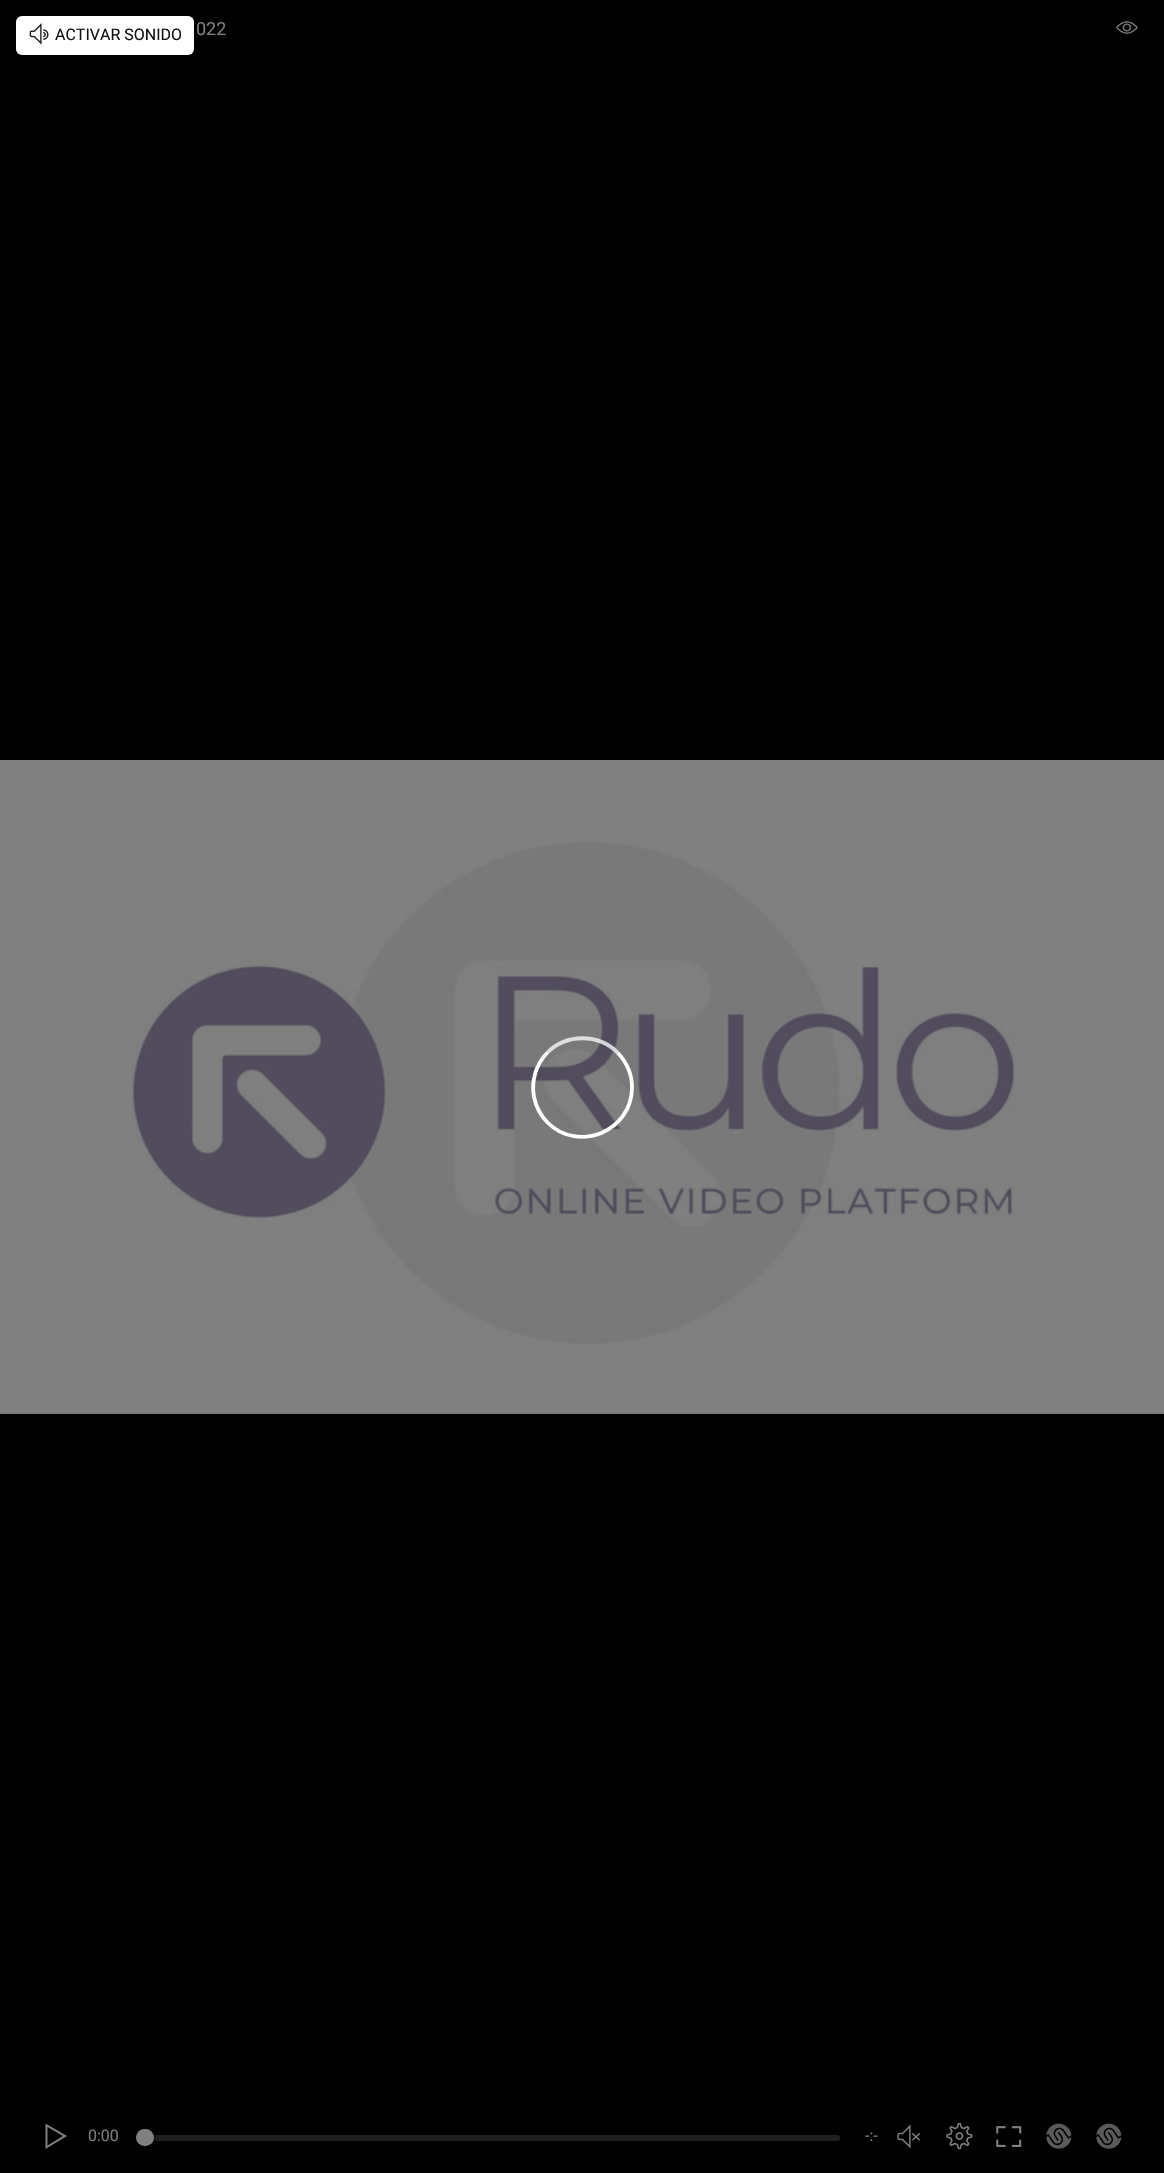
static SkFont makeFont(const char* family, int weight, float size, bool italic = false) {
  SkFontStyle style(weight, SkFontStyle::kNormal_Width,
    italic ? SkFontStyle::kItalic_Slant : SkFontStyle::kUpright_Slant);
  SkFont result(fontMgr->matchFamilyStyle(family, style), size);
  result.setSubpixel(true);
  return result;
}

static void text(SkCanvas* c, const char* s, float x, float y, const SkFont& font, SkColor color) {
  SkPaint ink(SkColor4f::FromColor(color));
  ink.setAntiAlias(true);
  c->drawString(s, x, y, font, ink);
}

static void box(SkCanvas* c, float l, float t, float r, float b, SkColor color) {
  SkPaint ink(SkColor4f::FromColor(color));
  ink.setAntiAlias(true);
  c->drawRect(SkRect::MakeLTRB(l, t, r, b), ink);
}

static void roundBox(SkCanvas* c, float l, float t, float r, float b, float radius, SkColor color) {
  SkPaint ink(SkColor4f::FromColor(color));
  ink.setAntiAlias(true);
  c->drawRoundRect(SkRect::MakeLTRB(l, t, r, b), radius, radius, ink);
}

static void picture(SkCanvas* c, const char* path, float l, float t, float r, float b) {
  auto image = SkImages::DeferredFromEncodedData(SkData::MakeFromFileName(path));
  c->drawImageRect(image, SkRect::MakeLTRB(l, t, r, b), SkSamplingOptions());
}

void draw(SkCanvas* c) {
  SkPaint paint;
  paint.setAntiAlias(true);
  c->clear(0xff000000);
  SkFont face1 = makeFont("Roboto", 400, 18);
  text(c, "022", 196, 35, face1, 0xff808080);
  picture(c, "img_01.png", 1116, 21, 1138, 34);
  roundBox(c, 16, 16, 194, 55, 6, 0xffffffff);
  picture(c, "img_02.png", 29, 23, 49, 45);
  SkFont face2 = makeFont("Roboto", 400, 16);
  text(c, "ACTIVAR SONIDO", 55, 40, face2, 0xff121212);
  picture(c, "img_03.png", 0, 760, 1164, 1413);
  paint.setStyle(SkPaint::kStroke_Style);
  paint.setStrokeWidth(3.8f);
  paint.setColor(0xbfffffff);
  c->drawPath(SkPathBuilder().moveTo(547.5f, 1052.5f).cubicTo(566.5f, 1033.5f, 598.5f, 1033.5f, 617.5f, 1052.5f).detach(), paint);
  paint.setColor(0xffffffff);
  c->drawPath(SkPathBuilder().moveTo(617.5f, 1052.5f).cubicTo(626.5f, 1062, 632, 1074.5f, 632, 1087.5f).cubicTo(632, 1131, 578.5f, 1153.5f, 547.5f, 1122.5f).cubicTo(540.5f, 1115.5f, 536, 1106.5f, 534, 1097).cubicTo(531, 1081, 536, 1064, 547.5f, 1052.5f).detach(), paint);
  box(c, 0, 1413, 1164, 1414, 0xff787878);
  paint.setStyle(SkPaint::kFill_Style);
  paint.setColor(0xff808080);
  c->drawPath(SkPathBuilder().moveTo(45.5f, 2123.5f).lineTo(45.5f, 2149).lineTo(67, 2136).close().moveTo(47.5f, 2127).lineTo(63, 2136).lineTo(47.5f, 2145.5f).close().detach(), paint);
  text(c, "0:00", 88, 2141, face2, 0xff808080);
  roundBox(c, 144, 2135, 840, 2141, 3, 0xff202020);
  paint.setColor(0xa8000000);
  paint.setMaskFilter(SkMaskFilter::MakeBlur(kNormal_SkBlurStyle, 4));
  c->drawRoundRect(SkRect::MakeLTRB(136, 2129, 154, 2146), 8.5f, 8.5f, paint);
  paint.setMaskFilter(nullptr);
  roundBox(c, 136, 2129, 154, 2146, 8.5f, 0xff808080);
  text(c, "-:-", 865, 2141, face2, 0xff808080);
  picture(c, "img_04.png", 897, 2124, 921, 2149);
  picture(c, "img_05.png", 946, 2122, 973, 2150);
  picture(c, "img_06.png", 996, 2126, 1022, 2147);
  picture(c, "img_07.png", 1046, 2123, 1072, 2149);
  picture(c, "img_07.png", 1096, 2123, 1122, 2149);
}
